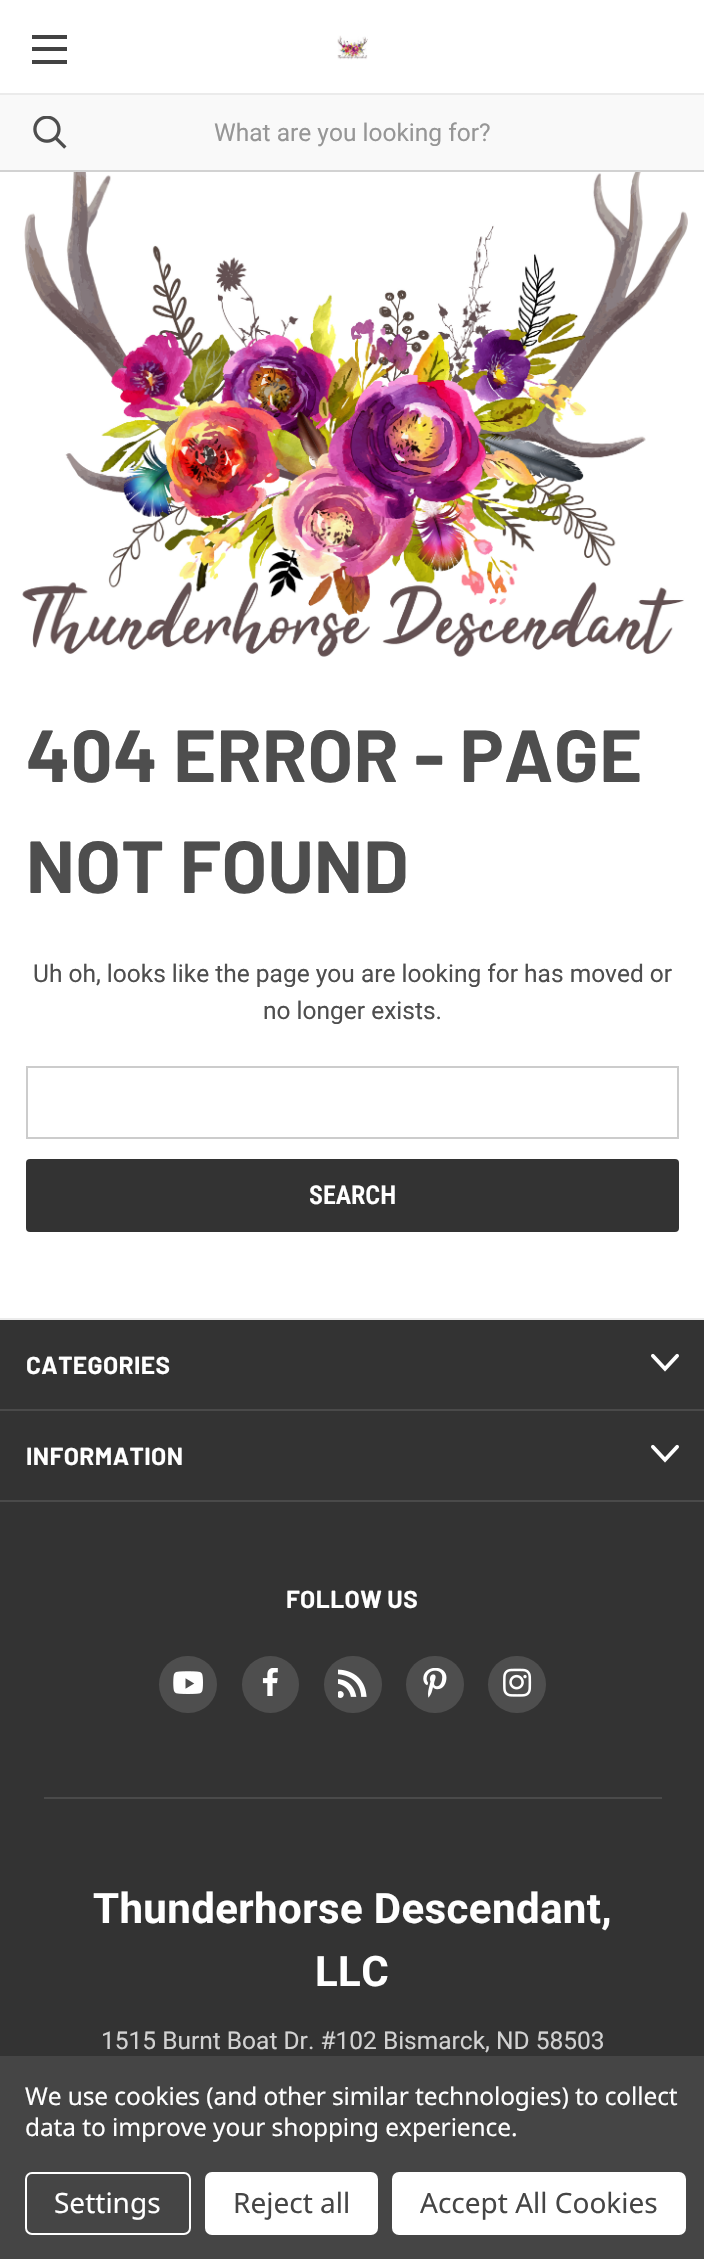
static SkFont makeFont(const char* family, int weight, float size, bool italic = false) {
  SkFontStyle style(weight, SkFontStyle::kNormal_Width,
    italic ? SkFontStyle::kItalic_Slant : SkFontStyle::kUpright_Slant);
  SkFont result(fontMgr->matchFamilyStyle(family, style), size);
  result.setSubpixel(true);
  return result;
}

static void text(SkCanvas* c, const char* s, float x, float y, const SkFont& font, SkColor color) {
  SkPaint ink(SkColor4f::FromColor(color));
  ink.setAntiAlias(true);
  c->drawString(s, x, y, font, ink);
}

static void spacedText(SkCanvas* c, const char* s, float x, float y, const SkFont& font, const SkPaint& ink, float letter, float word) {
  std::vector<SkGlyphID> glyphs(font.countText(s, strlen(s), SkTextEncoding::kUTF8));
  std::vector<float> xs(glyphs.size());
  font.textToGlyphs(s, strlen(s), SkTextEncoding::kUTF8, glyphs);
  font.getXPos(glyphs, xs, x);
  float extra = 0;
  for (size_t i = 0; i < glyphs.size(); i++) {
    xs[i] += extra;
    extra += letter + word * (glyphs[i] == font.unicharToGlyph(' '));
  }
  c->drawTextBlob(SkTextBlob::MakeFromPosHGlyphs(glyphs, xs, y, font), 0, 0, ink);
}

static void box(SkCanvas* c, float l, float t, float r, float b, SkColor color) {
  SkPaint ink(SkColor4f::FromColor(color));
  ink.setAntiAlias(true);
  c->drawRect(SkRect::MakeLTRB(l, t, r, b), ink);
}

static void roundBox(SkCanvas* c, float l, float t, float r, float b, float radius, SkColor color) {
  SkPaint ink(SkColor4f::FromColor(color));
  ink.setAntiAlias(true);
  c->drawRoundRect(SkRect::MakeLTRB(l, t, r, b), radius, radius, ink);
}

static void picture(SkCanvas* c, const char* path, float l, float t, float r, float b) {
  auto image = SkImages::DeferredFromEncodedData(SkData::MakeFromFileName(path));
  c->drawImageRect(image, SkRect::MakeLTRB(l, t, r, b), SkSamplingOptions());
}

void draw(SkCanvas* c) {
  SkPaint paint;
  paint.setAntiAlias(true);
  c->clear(0xffffffff);
  box(c, 32, 47, 67, 51, 0xff424242);
  box(c, 32, 35, 67, 39, 0xff424242);
  box(c, 32, 60, 67, 64, 0xff424242);
  picture(c, "img_01.png", 337, 35, 368, 60);
  box(c, 0, 95, 704, 170, 0xfff9f9f9);
  picture(c, "img_02.png", 33, 116, 67, 149);
  box(c, 0, 93, 704, 95, 0xffebebeb);
  SkFont face1 = makeFont("Roboto", 400, 24.5f);
  text(c, "What are you looking for?", 214, 141, face1, 0xff969696);
  box(c, 0, 170, 704, 172, 0xffd2d2d2);
  picture(c, "img_03.png", 22, 172, 688, 657);
  SkFont face2 = makeFont("Barlow", 700, 73.5f);
  paint.setColor(0xff4e4e4e);
  spacedText(c, "404 ERROR - PAGE", 26, 782, face2, paint, 0.4f, 0);
  spacedText(c, "NOT FOUND", 26, 893, face2, paint, 0.4f, 0);
  text(c, "Uh oh, looks like the page you are looking for has moved or", 33, 982, face1, 0xff4e4e4e);
  text(c, "no longer exists.", 263, 1019, face1, 0xff4e4e4e);
  paint.setStyle(SkPaint::kStroke_Style);
  paint.setStrokeWidth(2);
  paint.setColor(0xffcccccc);
  c->drawRect(SkRect::MakeLTRB(27, 1067, 678, 1138), paint);
  roundBox(c, 26, 1159, 679, 1232, 4, 0xff333333);
  SkFont face3 = makeFont("Roboto Condensed", 600, 26);
  text(c, "SEARCH", 309, 1204, face3, 0xffffffff);
  box(c, 0, 1320, 704, 2056, 0xff333333);
  box(c, 0, 1318, 704, 1320, 0xffebebeb);
  box(c, 0, 1409, 704, 1411, 0xff4a4a4a);
  SkFont face4 = makeFont("Barlow", 700, 24.5f);
  paint.setStyle(SkPaint::kFill_Style);
  paint.setColor(0xffffffff);
  spacedText(c, "CATEGORIES", 26, 1374, face4, paint, 0.4f, 0);
  picture(c, "img_04.png", 651, 1353, 679, 1372);
  box(c, 0, 1500, 704, 1502, 0xff4a4a4a);
  spacedText(c, "INFORMATION", 26, 1465, face4, paint, 0.4f, 0);
  picture(c, "img_04.png", 651, 1444, 679, 1463);
  box(c, 44, 1797, 662, 1799, 0xff4a4a4a);
  spacedText(c, "FOLLOW US", 286, 1608, face4, paint, 0.4f, 0);
  roundBox(c, 159, 1656, 217, 1713, 28.5f, 0xff4e4e4e);
  picture(c, "img_05.png", 173, 1671, 203, 1694);
  paint.setColor(0xff4e4e4e);
  c->drawCircle(270.5f, 1684.5f, 28.5f, paint);
  picture(c, "img_06.png", 262, 1668, 278, 1696);
  roundBox(c, 324, 1656, 382, 1713, 28.5f, 0xff4e4e4e);
  picture(c, "img_07.png", 338, 1669, 367, 1698);
  roundBox(c, 406, 1656, 464, 1713, 28.5f, 0xff4e4e4e);
  picture(c, "img_08.png", 423, 1668, 447, 1698);
  roundBox(c, 488, 1656, 546, 1713, 28.5f, 0xff4e4e4e);
  picture(c, "img_09.png", 503, 1668, 532, 1697);
  SkFont face5 = makeFont("Roboto", 700, 42);
  paint.setColor(0xffffffff);
  spacedText(c, "Thunderhorse Descendant,", 93, 1923, face5, paint, 0.4f, 0);
  spacedText(c, "LLC", 315, 1986, face5, paint, 0.4f, 0);
  text(c, "1515 Burnt Boat Dr. #102 Bismarck, ND 58503", 101, 2049, face1, 0xffd2d2d2);
  box(c, 0, 2056, 704, 2259, 0xff454545);
  SkFont face6 = makeFont("Noto Sans", 400, 24.5f);
  spacedText(c, "We use cookies (and other similar technologies) to collect", 25, 2105, face6, paint, -0.1f, 0);
  spacedText(c, "data to improve your shopping experience.", 25, 2136, face6, paint, -0.1f, 0);
  paint.setStyle(SkPaint::kStroke_Style);
  c->drawRoundRect(SkRect::MakeLTRB(26, 2173, 190, 2234), 6, 6, paint);
  SkFont face7 = makeFont("Noto Sans", 400, 28);
  text(c, "Settings", 54, 2213, face7, 0xffffffff);
  roundBox(c, 205, 2172, 378, 2235, 7, 0xffffffff);
  text(c, "Reject all", 233, 2213, face7, 0xff454545);
  roundBox(c, 392, 2172, 686, 2235, 7, 0xffffffff);
  text(c, "Accept All Cookies", 420, 2213, face7, 0xff454545);
}
